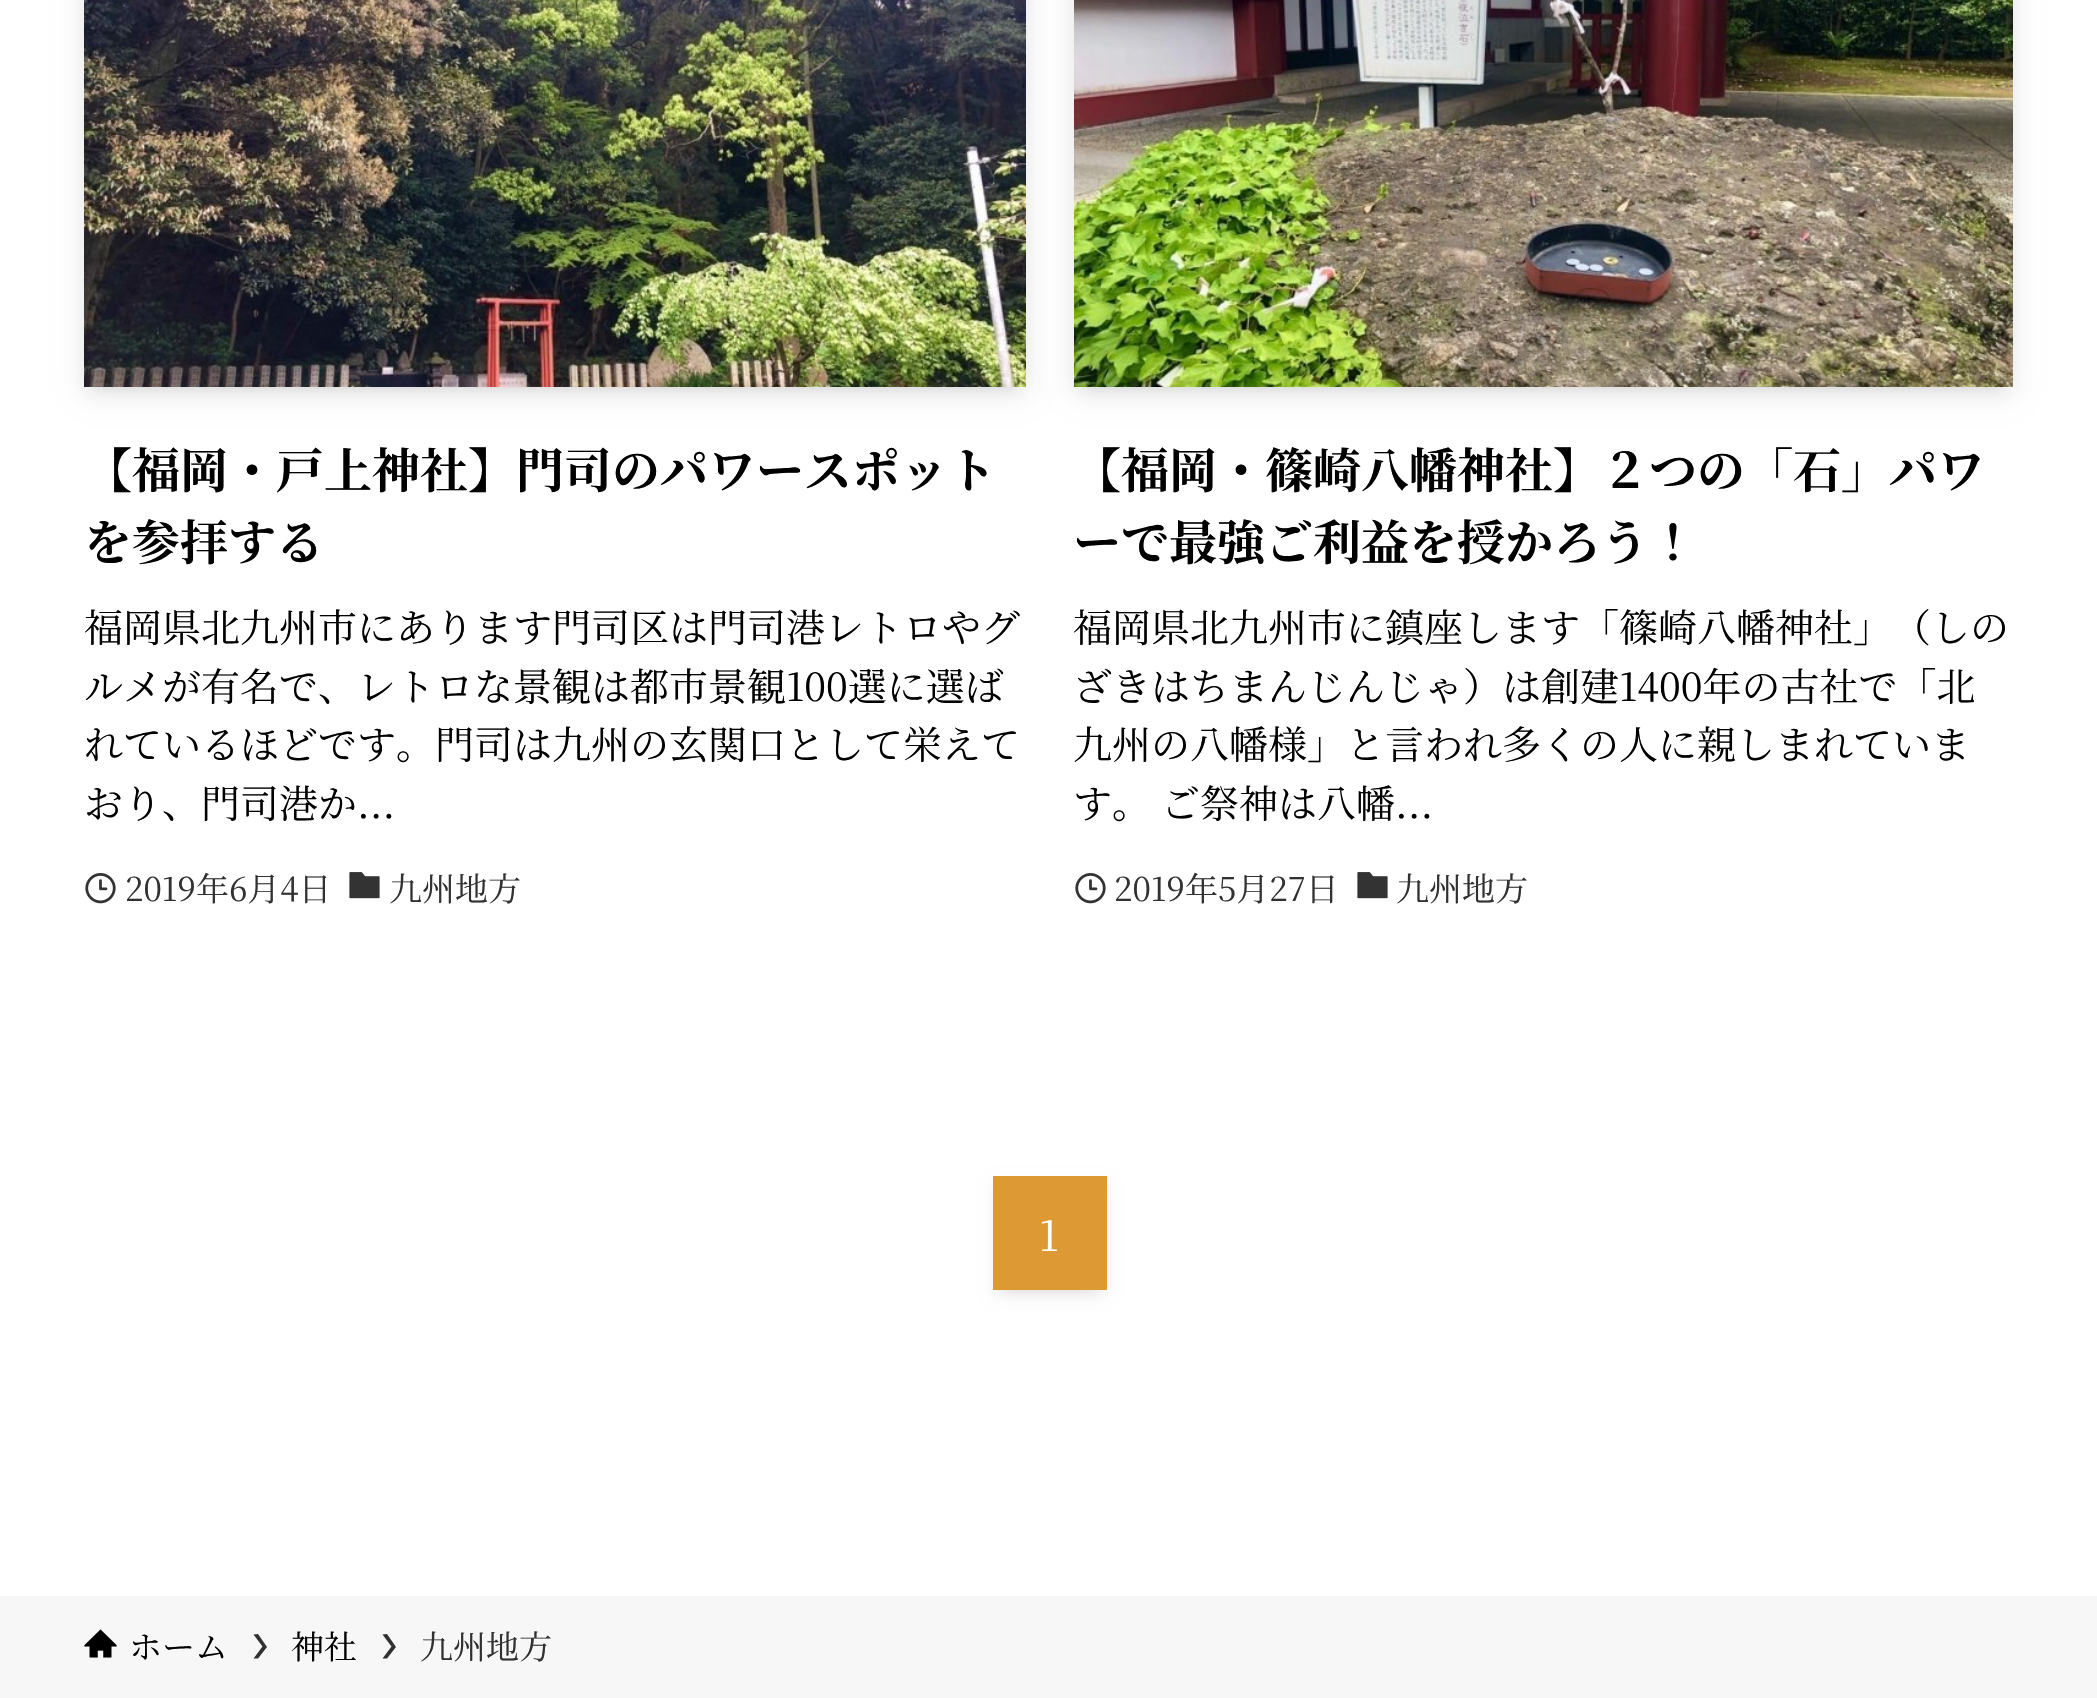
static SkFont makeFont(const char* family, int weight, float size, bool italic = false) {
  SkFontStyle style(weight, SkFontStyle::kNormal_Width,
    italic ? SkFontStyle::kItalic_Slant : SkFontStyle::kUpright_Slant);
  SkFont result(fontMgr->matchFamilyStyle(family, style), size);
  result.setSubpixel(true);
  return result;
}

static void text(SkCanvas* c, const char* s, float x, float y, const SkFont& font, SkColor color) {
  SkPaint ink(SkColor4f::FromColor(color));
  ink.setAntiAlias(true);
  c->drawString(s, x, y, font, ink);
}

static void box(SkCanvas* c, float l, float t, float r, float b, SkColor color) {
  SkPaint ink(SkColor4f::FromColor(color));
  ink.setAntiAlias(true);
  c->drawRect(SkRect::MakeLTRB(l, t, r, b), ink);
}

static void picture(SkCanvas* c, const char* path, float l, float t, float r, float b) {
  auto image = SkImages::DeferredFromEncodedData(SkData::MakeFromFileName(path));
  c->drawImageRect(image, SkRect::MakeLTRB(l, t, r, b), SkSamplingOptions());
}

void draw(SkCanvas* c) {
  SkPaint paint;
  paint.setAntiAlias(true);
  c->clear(0xffffffff);
  paint.setColor(0x1a000000);
  paint.setMaskFilter(SkMaskFilter::MakeBlur(kNormal_SkBlurStyle, 6));
  c->drawRect(SkRect::MakeLTRB(96, -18, 1014, 387), paint);
  paint.setMaskFilter(nullptr);
  paint.setMaskFilter(SkMaskFilter::MakeBlur(kNormal_SkBlurStyle, 12));
  c->drawRect(SkRect::MakeLTRB(84, -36, 1026, 393), paint);
  paint.setMaskFilter(nullptr);
  picture(c, "img_01.png", 84, 0, 1026, 387);
  SkFont face1 = makeFont("Noto Serif JP", 700, 48);
  text(c, "【福岡・戸上神社】門司のパワースポット", 84, 488, face1, 0xff000000);
  text(c, "を参拝する", 84, 560, face1, 0xff000000);
  SkFont face2 = makeFont("Noto Serif JP", 400, 39);
  text(c, "福岡県北九州市にあります門司区は門司港レトロやグ", 84, 642, face2, 0xff000000);
  text(c, "ルメが有名で、レトロな景観は都市景観100選に選ば", 84, 701, face2, 0xff000000);
  text(c, "れているほどです。門司は九州の玄関口として栄えて", 84, 759, face2, 0xff000000);
  text(c, "おり、門司港か...", 84, 818, face2, 0xff000000);
  picture(c, "img_02.png", 85, 873, 116, 904);
  SkFont face3 = makeFont("Noto Serif JP", 400, 33);
  text(c, "2019年6月4日", 125, 901, face3, 0xff313131);
  picture(c, "img_03.png", 349, 872, 380, 899);
  text(c, "九州地方", 389, 901, face3, 0xff313131);
  paint.setMaskFilter(SkMaskFilter::MakeBlur(kNormal_SkBlurStyle, 6));
  c->drawRect(SkRect::MakeLTRB(1086, -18, 2001, 387), paint);
  paint.setMaskFilter(nullptr);
  paint.setMaskFilter(SkMaskFilter::MakeBlur(kNormal_SkBlurStyle, 12));
  c->drawRect(SkRect::MakeLTRB(1074, -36, 2013, 393), paint);
  paint.setMaskFilter(nullptr);
  picture(c, "img_04.png", 1074, 0, 2013, 387);
  text(c, "【福岡・篠崎八幡神社】２つの「石」パワ", 1073, 488, face1, 0xff000000);
  text(c, "ーで最強ご利益を授かろう！", 1073, 560, face1, 0xff000000);
  text(c, "福岡県北九州市に鎮座します「篠崎八幡神社」（しの", 1073, 642, face2, 0xff000000);
  text(c, "ざきはちまんじんじゃ）は創建1400年の古社で「北", 1073, 701, face2, 0xff000000);
  text(c, "九州の八幡様」と言われ多くの人に親しまれていま", 1073, 759, face2, 0xff000000);
  text(c, "す。 ご祭神は八幡...", 1073, 818, face2, 0xff000000);
  picture(c, "img_05.png", 1075, 873, 1106, 904);
  text(c, "2019年5月27日", 1114, 901, face3, 0xff313131);
  picture(c, "img_03.png", 1357, 872, 1388, 899);
  text(c, "九州地方", 1396, 901, face3, 0xff313131);
  paint.setMaskFilter(SkMaskFilter::MakeBlur(kNormal_SkBlurStyle, 6));
  c->drawRect(SkRect::MakeLTRB(1005, 1200, 1095, 1290), paint);
  paint.setMaskFilter(nullptr);
  paint.setColor(0x0d000000);
  paint.setMaskFilter(SkMaskFilter::MakeBlur(kNormal_SkBlurStyle, 6));
  c->drawRect(SkRect::MakeLTRB(993, 1182, 1107, 1296), paint);
  paint.setMaskFilter(nullptr);
  box(c, 993, 1176, 1107, 1290, 0xffdd9933);
  SkFont face4 = makeFont("Noto Serif JP", 400, 42);
  text(c, "1", 1039, 1251, face4, 0xffffffff);
  box(c, 0, 1596, 2097, 1698, 0xfff7f7f7);
  picture(c, "img_06.png", 84, 1629, 117, 1658);
  text(c, "ホーム", 129, 1659, face3, 0xff000000);
  paint.setColor(0xff313131);
  c->drawPath(SkPathBuilder().moveTo(258, 1634).lineTo(253.5f, 1634.5f).lineTo(262.5f, 1646.5f).lineTo(253.5f, 1658.5f).lineTo(258, 1658.5f).lineTo(267, 1647).close().detach(), paint);
  text(c, "神社", 291, 1659, face3, 0xff000000);
  c->drawPath(SkPathBuilder().moveTo(387, 1634).lineTo(382.5f, 1634.5f).lineTo(391.5f, 1646.5f).lineTo(382.5f, 1658.5f).lineTo(387, 1658.5f).lineTo(396, 1647).close().detach(), paint);
  text(c, "九州地方", 420, 1659, face3, 0xff313131);
}
